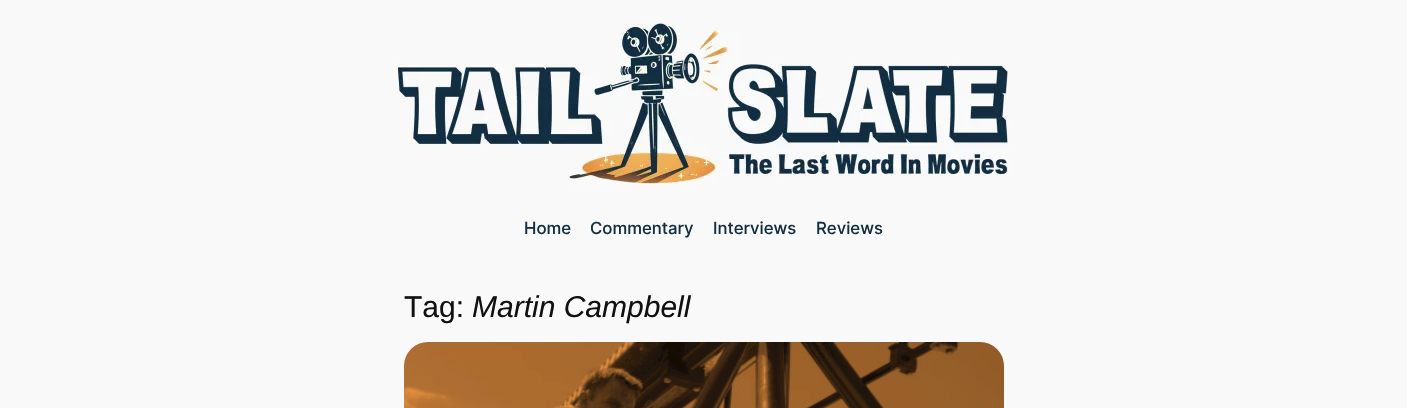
static SkFont makeFont(const char* family, int weight, float size, bool italic = false) {
  SkFontStyle style(weight, SkFontStyle::kNormal_Width,
    italic ? SkFontStyle::kItalic_Slant : SkFontStyle::kUpright_Slant);
  SkFont result(fontMgr->matchFamilyStyle(family, style), size);
  result.setSubpixel(true);
  return result;
}

static void text(SkCanvas* c, const char* s, float x, float y, const SkFont& font, SkColor color) {
  SkPaint ink(SkColor4f::FromColor(color));
  ink.setAntiAlias(true);
  c->drawString(s, x, y, font, ink);
}

static void picture(SkCanvas* c, const char* path, float l, float t, float r, float b) {
  auto image = SkImages::DeferredFromEncodedData(SkData::MakeFromFileName(path));
  c->drawImageRect(image, SkRect::MakeLTRB(l, t, r, b), SkSamplingOptions());
}

void draw(SkCanvas* c) {
  SkPaint paint;
  paint.setAntiAlias(true);
  c->clear(0xfff9f9f9);
  picture(c, "img_01.png", 396, 20, 1012, 185);
  SkFont face1 = makeFont("Inter", 500, 16.75f);
  text(c, "Home", 524, 234, face1, 0xff122e43);
  text(c, "Commentary", 590, 234, face1, 0xff122e43);
  text(c, "Interviews", 713, 234, face1, 0xff122e43);
  text(c, "Reviews", 816, 234, face1, 0xff122e43);
  SkFont face2 = makeFont("Liberation Sans", 400, 30);
  text(c, "Tag:", 404, 317, face2, 0xff111111);
  SkFont face3 = makeFont("Liberation Sans", 400, 30, true);
  text(c, "Martin Campbell", 472, 317, face3, 0xff111111);
  picture(c, "img_02.png", 404, 342, 1004, 408);
}
